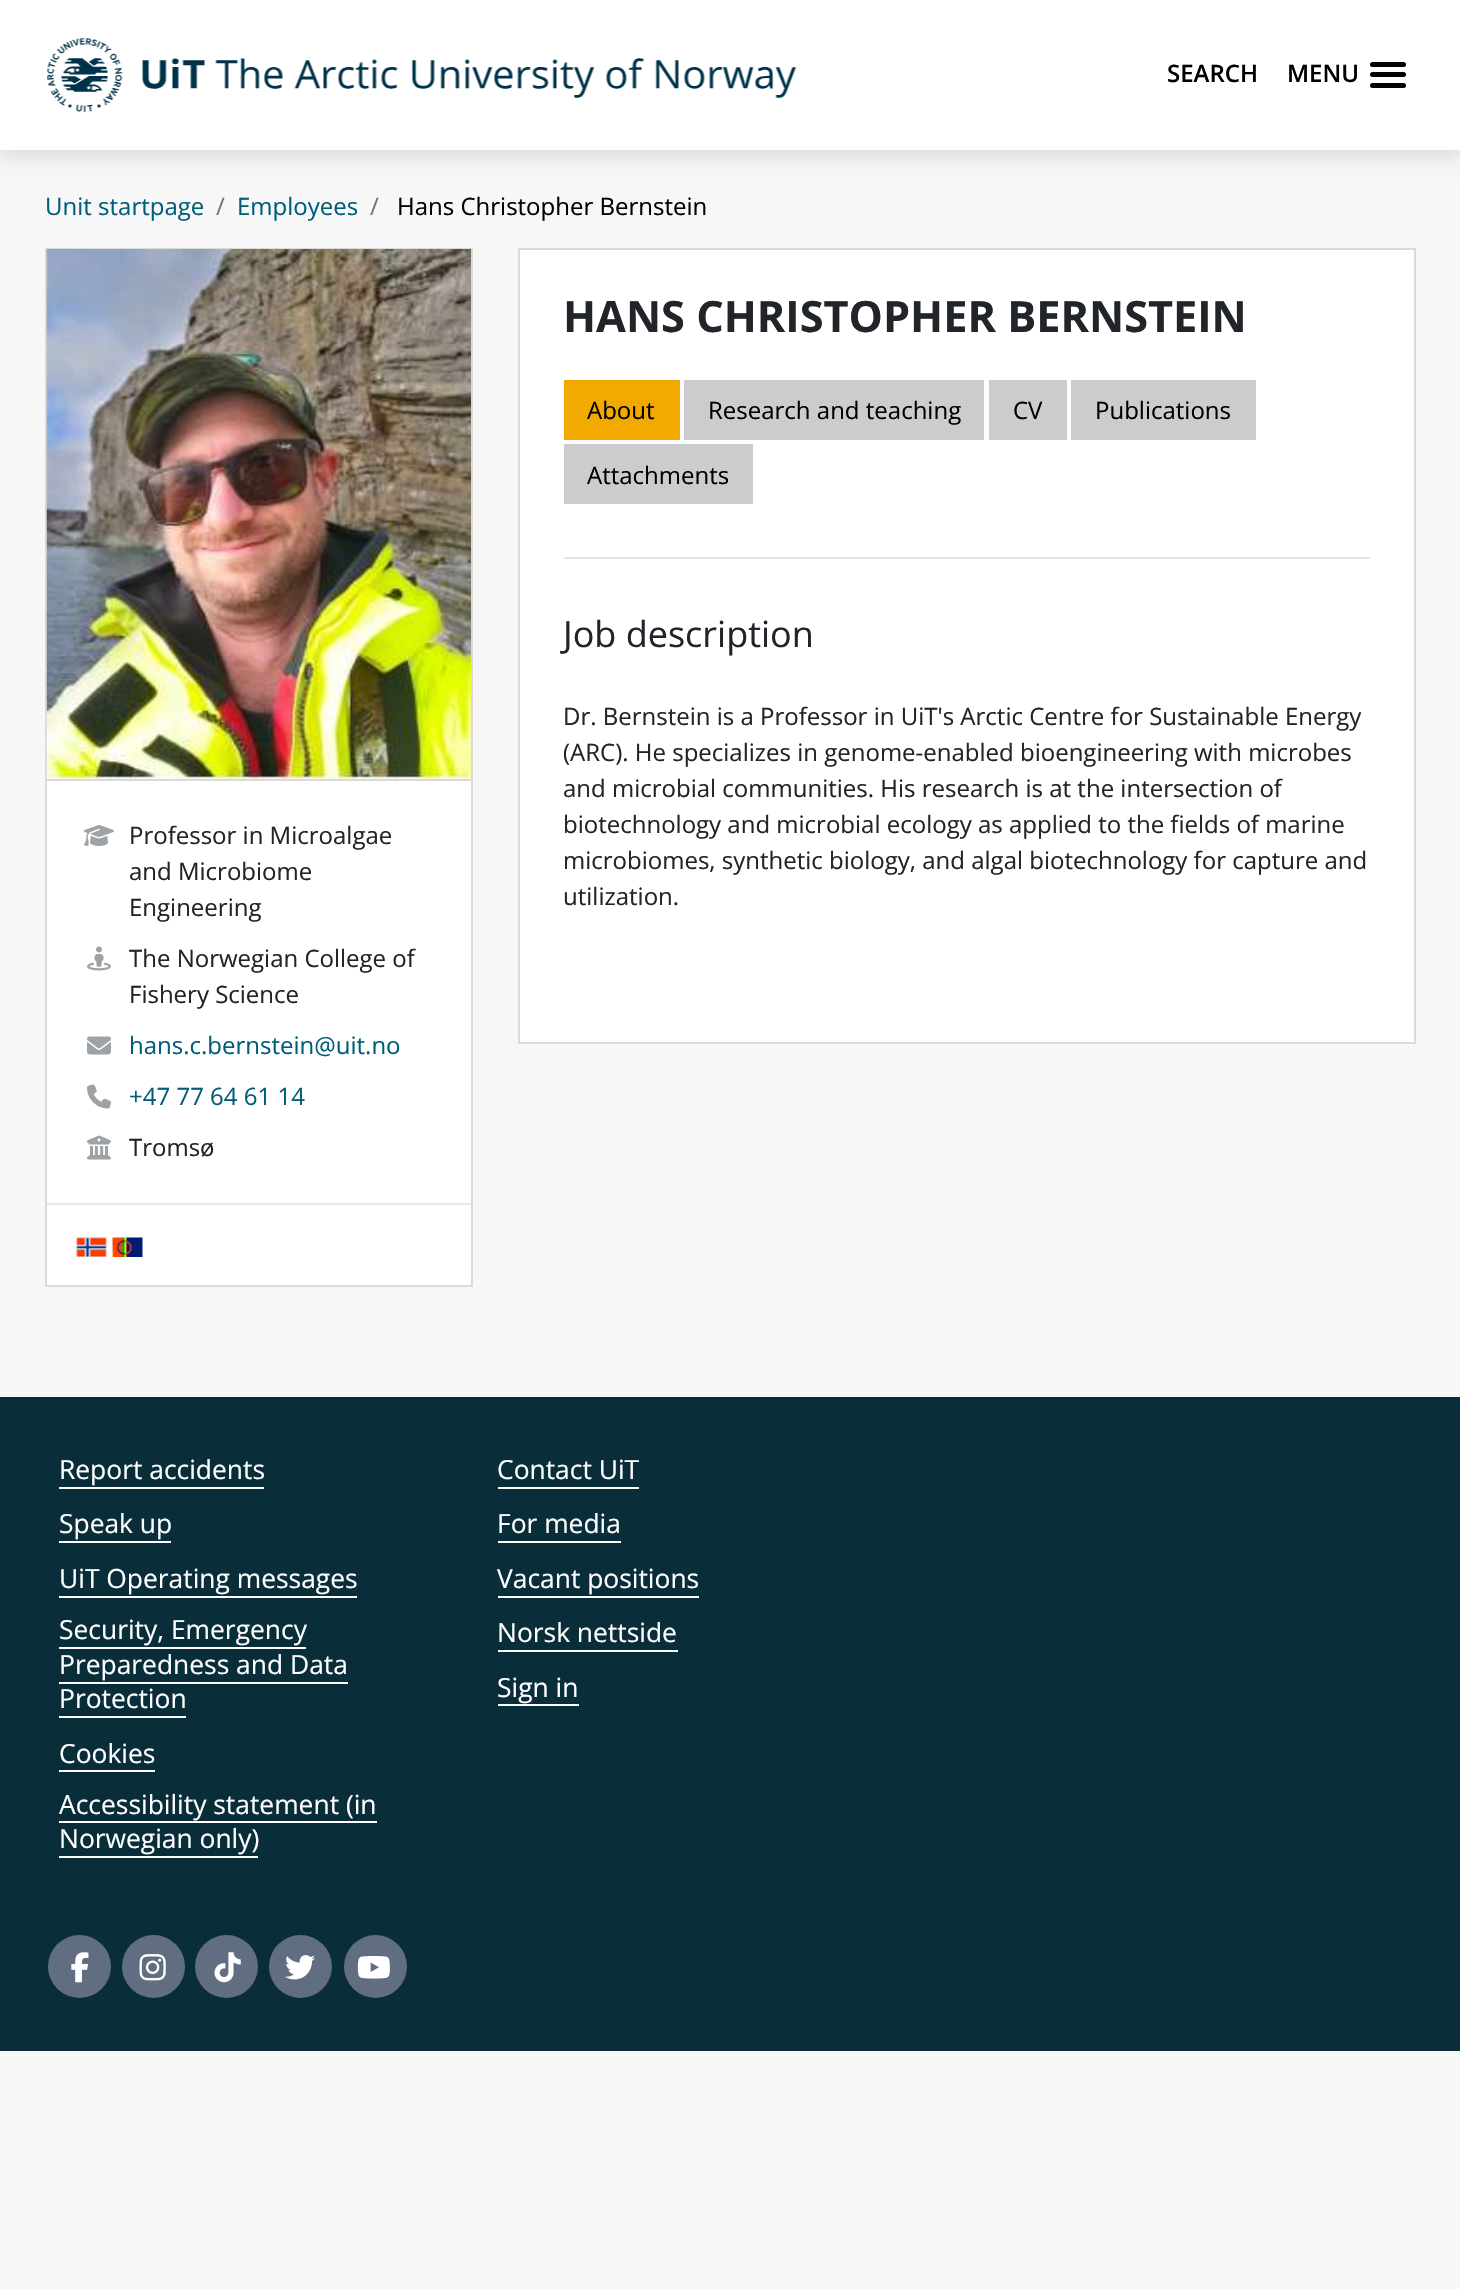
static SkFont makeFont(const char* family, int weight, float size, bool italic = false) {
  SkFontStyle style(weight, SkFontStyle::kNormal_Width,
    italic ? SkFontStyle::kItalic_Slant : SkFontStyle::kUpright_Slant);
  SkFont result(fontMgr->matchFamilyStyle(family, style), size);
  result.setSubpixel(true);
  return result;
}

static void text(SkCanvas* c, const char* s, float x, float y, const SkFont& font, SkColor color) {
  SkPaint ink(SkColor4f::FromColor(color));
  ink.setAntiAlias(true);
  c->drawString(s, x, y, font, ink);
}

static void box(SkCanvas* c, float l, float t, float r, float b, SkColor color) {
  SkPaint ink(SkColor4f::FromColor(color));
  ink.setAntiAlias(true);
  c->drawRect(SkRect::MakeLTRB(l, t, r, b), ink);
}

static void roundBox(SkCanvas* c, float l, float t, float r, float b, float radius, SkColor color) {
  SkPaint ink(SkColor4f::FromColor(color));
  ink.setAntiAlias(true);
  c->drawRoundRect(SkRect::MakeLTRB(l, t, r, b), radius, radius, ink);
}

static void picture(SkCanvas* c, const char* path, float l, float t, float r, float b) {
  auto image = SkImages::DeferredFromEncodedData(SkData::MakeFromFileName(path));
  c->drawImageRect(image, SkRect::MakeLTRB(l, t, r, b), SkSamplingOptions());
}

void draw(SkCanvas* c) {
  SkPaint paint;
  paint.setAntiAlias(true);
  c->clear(0xfff7f7f7);
  paint.setColor(0x1a000000);
  paint.setMaskFilter(SkMaskFilter::MakeBlur(kNormal_SkBlurStyle, 7.5f));
  c->drawRect(SkRect::MakeLTRB(0, 8, 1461, 158), paint);
  paint.setMaskFilter(nullptr);
  box(c, 0, 0, 1460, 150, 0xffffffff);
  picture(c, "img_01.png", 47, 38, 797, 112);
  SkFont face1 = makeFont("Open Sans", 600, 24);
  text(c, "SEARCH", 1167, 82, face1, 0xff000000);
  text(c, "MENU", 1287, 82, face1, 0xff000000);
  roundBox(c, 1370, 62, 1406, 67, 2.5f, 0xff000000);
  roundBox(c, 1370, 72, 1406, 77, 2.5f, 0xff000000);
  roundBox(c, 1370, 83, 1406, 88, 2.5f, 0xff000000);
  SkFont face2 = makeFont("Open Sans", 400, 24);
  text(c, "Unit startpage", 45, 215, face2, 0xff005e7a);
  text(c, "/", 216, 215, face2, 0xff6c757d);
  text(c, "Employees", 237, 215, face2, 0xff005e7a);
  text(c, "/", 370, 215, face2, 0xff6c757d);
  text(c, "Hans Christopher Bernstein", 397, 215, face2, 0xff000000);
  paint.setColor(0xffffffff);
  c->drawRect(SkRect::MakeLTRB(519, 249, 1415, 1043), paint);
  paint.setStyle(SkPaint::kStroke_Style);
  paint.setStrokeWidth(2);
  paint.setColor(0xffdadada);
  c->drawRect(SkRect::MakeLTRB(519, 249, 1415, 1043), paint);
  SkFont face3 = makeFont("Open Sans", 700, 43.25f);
  text(c, "HANS CHRISTOPHER BERNSTEIN", 563, 332, face3, 0xff212529);
  box(c, 564, 380, 680, 440, 0xfff2a900);
  text(c, "About", 587, 419, face2, 0xff000000);
  box(c, 684, 380, 984, 440, 0xffcccccc);
  text(c, "Research and teaching", 708, 419, face2, 0xff000000);
  box(c, 989, 380, 1067, 440, 0xffcccccc);
  text(c, "CV", 1013, 419, face2, 0xff000000);
  box(c, 1071, 380, 1256, 440, 0xffcccccc);
  text(c, "Publications", 1095, 419, face2, 0xff000000);
  box(c, 564, 444, 753, 504, 0xffcccccc);
  text(c, "Attachments", 587, 484, face2, 0xff000000);
  box(c, 564, 557, 1370, 559, 0xffe6e6e6);
  SkFont face4 = makeFont("Open Sans", 400, 36);
  text(c, "Job description", 563, 647, face4, 0xff212529);
  text(c, "Dr. Bernstein is a Professor in UiT's Arctic Centre for Sustainable Energy", 563, 725, face2, 0xff212529);
  text(c, "(ARC). He specializes in genome-enabled bioengineering with microbes", 563, 761, face2, 0xff212529);
  text(c, "and microbial communities. His research is at the intersection of", 563, 797, face2, 0xff212529);
  text(c, "biotechnology and microbial ecology as applied to the fields of marine", 563, 833, face2, 0xff212529);
  text(c, "microbiomes, synthetic biology, and algal biotechnology for capture and", 563, 869, face2, 0xff212529);
  text(c, "utilization.", 563, 905, face2, 0xff212529);
  box(c, 45, 248, 473, 249, 0xffdadada);
  box(c, 471, 248, 473, 779, 0xffdadada);
  box(c, 45, 248, 47, 779, 0xffdadada);
  picture(c, "img_02.png", 46, 249, 471, 779);
  paint.setStyle(SkPaint::kFill_Style);
  paint.setColor(0xffffffff);
  c->drawRect(SkRect::MakeLTRB(46, 780, 472, 1286), paint);
  paint.setStyle(SkPaint::kStroke_Style);
  paint.setColor(0xffdadada);
  c->drawRect(SkRect::MakeLTRB(46, 780, 472, 1286), paint);
  box(c, 47, 1203, 471, 1205, 0xffe6e7ed);
  picture(c, "img_03.png", 84, 825, 114, 846);
  text(c, "Professor in Microalgae", 129, 844, face2, 0xff212529);
  text(c, "and Microbiome", 129, 880, face2, 0xff212529);
  text(c, "Engineering", 129, 916, face2, 0xff212529);
  picture(c, "img_04.png", 87, 946, 111, 971);
  text(c, "The Norwegian College of", 129, 967, face2, 0xff212529);
  text(c, "Fishery Science", 129, 1003, face2, 0xff212529);
  picture(c, "img_05.png", 87, 1036, 111, 1055);
  text(c, "hans.c.bernstein@uit.no", 129, 1054, face2, 0xff005e7a);
  picture(c, "img_06.png", 87, 1084, 111, 1109);
  text(c, "+47 77 64 61 14", 129, 1105, face2, 0xff005e7a);
  picture(c, "img_07.png", 87, 1135, 111, 1160);
  text(c, "Tromsø", 129, 1156, face2, 0xff212529);
  picture(c, "img_08.png", 76, 1237, 107, 1257);
  picture(c, "img_09.png", 112, 1237, 143, 1257);
  box(c, 0, 1397, 1460, 2051, 0xff0a2d3a);
  SkFont face5 = makeFont("Open Sans", 400, 26.4f);
  text(c, "Report accidents", 59, 1479, face5, 0xffffffff);
  box(c, 59, 1487, 264, 1489, 0xffffffff);
  text(c, "Speak up", 59, 1533, face5, 0xffffffff);
  box(c, 59, 1541, 171, 1543, 0xffffffff);
  text(c, "UiT Operating messages", 59, 1588, face5, 0xffffffff);
  box(c, 59, 1596, 357, 1598, 0xffffffff);
  text(c, "Security, Emergency", 59, 1639, face5, 0xffffffff);
  box(c, 59, 1647, 306, 1649, 0xffffffff);
  text(c, "Preparedness and Data", 59, 1674, face5, 0xffffffff);
  text(c, "Protection", 59, 1708, face5, 0xffffffff);
  box(c, 59, 1682, 348, 1684, 0xffffffff);
  box(c, 59, 1716, 186, 1718, 0xffffffff);
  text(c, "Cookies", 59, 1763, face5, 0xffffffff);
  box(c, 59, 1770, 155, 1772, 0xffffffff);
  text(c, "Accessibility statement (in", 59, 1814, face5, 0xffffffff);
  box(c, 59, 1821, 377, 1823, 0xffffffff);
  text(c, "Norwegian only)", 59, 1848, face5, 0xffffffff);
  box(c, 59, 1856, 258, 1858, 0xffffffff);
  text(c, "Contact UiT", 497, 1479, face5, 0xffffffff);
  box(c, 498, 1487, 639, 1489, 0xffffffff);
  text(c, "For media", 497, 1533, face5, 0xffffffff);
  box(c, 498, 1541, 621, 1543, 0xffffffff);
  text(c, "Vacant positions", 497, 1588, face5, 0xffffffff);
  box(c, 498, 1596, 699, 1598, 0xffffffff);
  text(c, "Norsk nettside", 497, 1642, face5, 0xffffffff);
  box(c, 498, 1650, 678, 1652, 0xffffffff);
  text(c, "Sign in", 497, 1697, face5, 0xffffffff);
  box(c, 498, 1704, 579, 1706, 0xffffffff);
  paint.setStyle(SkPaint::kFill_Style);
  paint.setColor(0xff616e81);
  c->drawCircle(79.5f, 1966.5f, 31.5f, paint);
  picture(c, "img_10.png", 71, 1952, 89, 1983);
  c->drawCircle(153.5f, 1966.5f, 31.5f, paint);
  picture(c, "img_11.png", 139, 1954, 166, 1981);
  c->drawCircle(226.5f, 1966.5f, 31.5f, paint);
  picture(c, "img_12.png", 214, 1952, 241, 1983);
  c->drawCircle(300.5f, 1966.5f, 31.5f, paint);
  picture(c, "img_13.png", 285, 1955, 315, 1980);
  c->drawCircle(375.5f, 1966.5f, 31.5f, paint);
  picture(c, "img_14.png", 357, 1956, 390, 1979);
}
